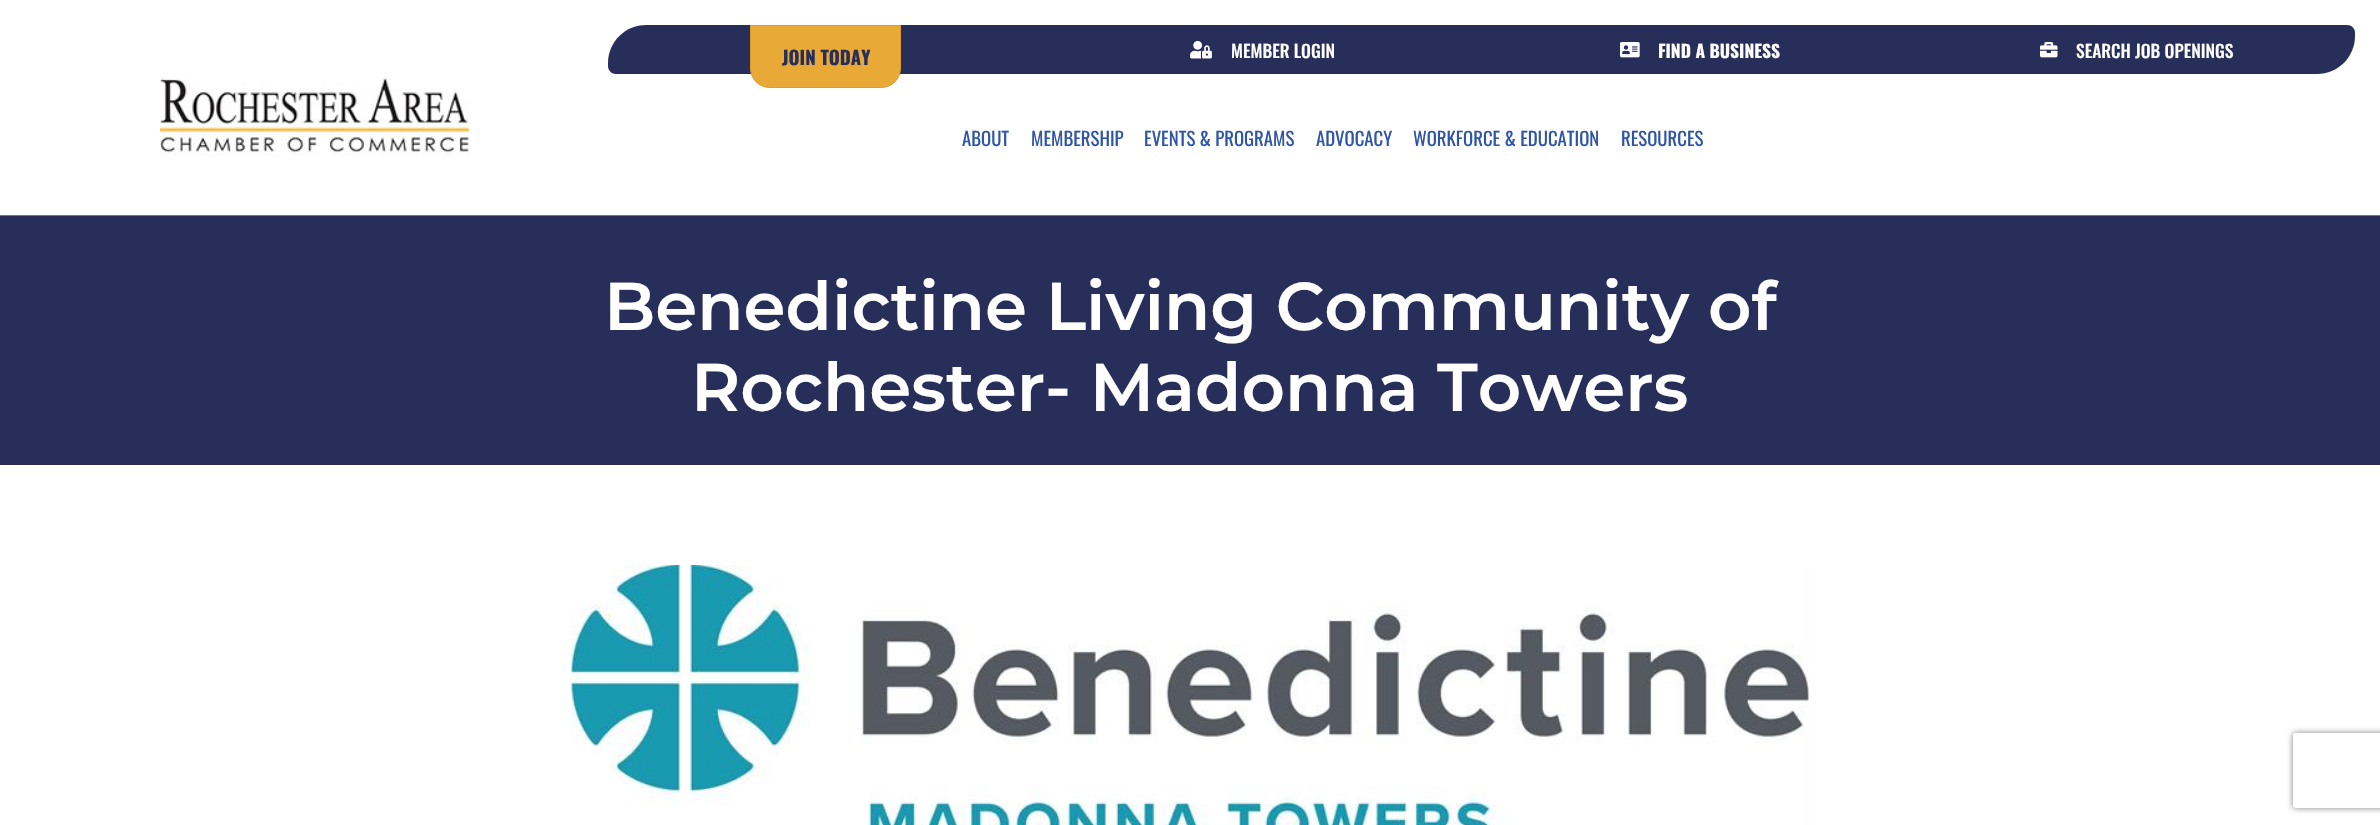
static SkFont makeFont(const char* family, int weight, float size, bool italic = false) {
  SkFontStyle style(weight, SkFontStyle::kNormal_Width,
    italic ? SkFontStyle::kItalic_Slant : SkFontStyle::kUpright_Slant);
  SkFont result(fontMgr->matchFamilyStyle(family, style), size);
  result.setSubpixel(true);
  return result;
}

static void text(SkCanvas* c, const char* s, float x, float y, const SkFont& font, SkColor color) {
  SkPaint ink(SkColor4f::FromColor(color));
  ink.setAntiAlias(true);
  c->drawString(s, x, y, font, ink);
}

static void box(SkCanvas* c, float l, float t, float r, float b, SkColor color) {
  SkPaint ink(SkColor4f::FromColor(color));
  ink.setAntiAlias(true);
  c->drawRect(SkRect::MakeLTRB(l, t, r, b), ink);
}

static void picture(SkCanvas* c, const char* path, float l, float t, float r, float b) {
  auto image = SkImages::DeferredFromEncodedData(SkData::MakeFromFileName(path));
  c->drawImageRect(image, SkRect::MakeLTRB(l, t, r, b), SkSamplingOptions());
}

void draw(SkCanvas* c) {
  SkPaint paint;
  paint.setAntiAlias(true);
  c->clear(0xffffffff);
  box(c, 0, 215, 2380, 216, 0xff777777);
  picture(c, "img_01.png", 160, 78, 471, 156);
  paint.setColor(0xff272e59);
  c->drawPath(SkPathBuilder().moveTo(646, 25).lineTo(1045, 25).lineTo(1045, 74).lineTo(616, 74).cubicTo(611.5f, 74, 608, 70.5f, 608, 66).lineTo(608, 63).cubicTo(608, 42, 625, 25, 646, 25).close().detach(), paint);
  paint.setColor(0xffe9a936);
  c->drawPath(SkPathBuilder().moveTo(750.5f, 25.5f).lineTo(900.5f, 25.5f).lineTo(900.5f, 68).cubicTo(900.5f, 79, 892, 87.5f, 881, 87.5f).lineTo(770, 87.5f).cubicTo(759, 87.5f, 750.5f, 79, 750.5f, 68).close().detach(), paint);
  paint.setStyle(SkPaint::kStroke_Style);
  paint.setStrokeWidth(1);
  paint.setColor(0xffdd9d2a);
  c->drawPath(SkPathBuilder().moveTo(750.5f, 25.5f).lineTo(900.5f, 25.5f).lineTo(900.5f, 68).cubicTo(900.5f, 79, 892, 87.5f, 881, 87.5f).lineTo(770, 87.5f).cubicTo(759, 87.5f, 750.5f, 79, 750.5f, 68).close().detach(), paint);
  SkFont face1 = makeFont("Oswald", 700, 18.75f);
  text(c, "JOIN TODAY", 782, 65, face1, 0xff272e59);
  box(c, 1045, 25, 1919, 74, 0xff272e59);
  picture(c, "img_02.png", 1190, 40, 1212, 59);
  SkFont face2 = makeFont("Oswald", 500, 17.5f);
  text(c, "MEMBER LOGIN", 1231, 58, face2, 0xffffffff);
  picture(c, "img_03.png", 1620, 42, 1640, 58);
  SkFont face3 = makeFont("Oswald", 700, 17.5f);
  text(c, "FIND A BUSINESS", 1658, 58, face3, 0xffffffff);
  paint.setStyle(SkPaint::kFill_Style);
  paint.setColor(0xff272e59);
  c->drawPath(SkPathBuilder().moveTo(1919, 25).lineTo(2347, 25).cubicTo(2351.5f, 25, 2355, 28.5f, 2355, 33).lineTo(2355, 36).cubicTo(2355, 57, 2338, 74, 2317, 74).lineTo(1919, 74).close().detach(), paint);
  picture(c, "img_04.png", 2040, 42, 2058, 58);
  text(c, "SEARCH JOB OPENINGS", 2076, 58, face2, 0xffffffff);
  SkFont face4 = makeFont("Oswald", 400, 18.75f);
  text(c, "ABOUT", 962, 146, face4, 0xff2e55a9);
  text(c, "MEMBERSHIP", 1031, 146, face4, 0xff2e55a9);
  text(c, "EVENTS & PROGRAMS", 1144, 146, face4, 0xff2e55a9);
  text(c, "ADVOCACY", 1316, 146, face4, 0xff2e55a9);
  text(c, "WORKFORCE & EDUCATION", 1413, 146, face4, 0xff2e55a9);
  text(c, "RESOURCES", 1621, 146, face4, 0xff2e55a9);
  box(c, 0, 216, 2380, 465, 0xff272e59);
  SkFont face5 = makeFont("Montserrat", 600, 67.5f);
  text(c, "Benedictine Living Community of", 604, 330, face5, 0xffffffff);
  text(c, "Rochester- Madonna Towers", 691, 411, face5, 0xffffffff);
  picture(c, "img_05.png", 571, 565, 1809, 825);
  c->save();
  c->clipPath(SkPathBuilder(SkPathFillType::kEvenOdd).moveTo(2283, 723).lineTo(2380, 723).lineTo(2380, 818).lineTo(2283, 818).close().moveTo(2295.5f, 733).lineTo(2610.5f, 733).cubicTo(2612, 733, 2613, 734, 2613, 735.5f).lineTo(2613, 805.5f).cubicTo(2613, 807, 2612, 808, 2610.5f, 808).lineTo(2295.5f, 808).cubicTo(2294, 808, 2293, 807, 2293, 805.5f).lineTo(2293, 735.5f).cubicTo(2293, 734, 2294, 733, 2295.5f, 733).close().detach(), true);
  paint.setColor(0xff808080);
  paint.setMaskFilter(SkMaskFilter::MakeBlur(kNormal_SkBlurStyle, 3));
  c->drawRoundRect(SkRect::MakeLTRB(2293, 733, 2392, 808), 2.5f, 2.5f, paint);
  paint.setMaskFilter(nullptr);
  c->restore();
}
